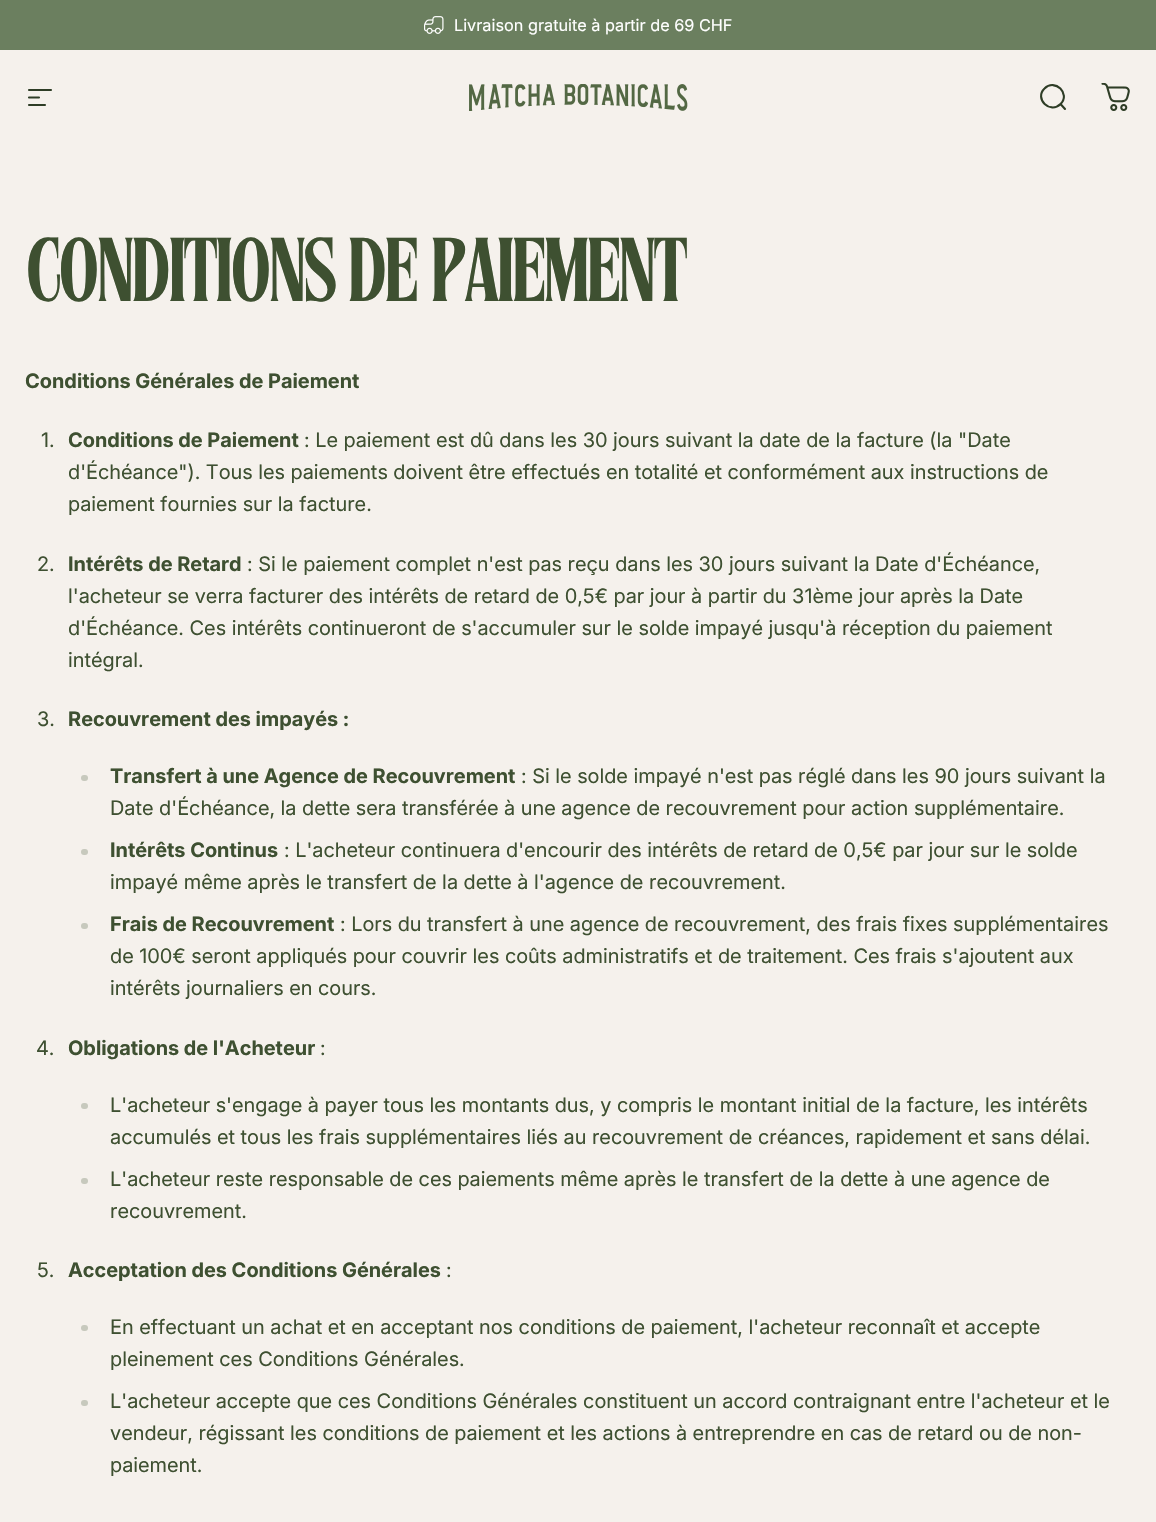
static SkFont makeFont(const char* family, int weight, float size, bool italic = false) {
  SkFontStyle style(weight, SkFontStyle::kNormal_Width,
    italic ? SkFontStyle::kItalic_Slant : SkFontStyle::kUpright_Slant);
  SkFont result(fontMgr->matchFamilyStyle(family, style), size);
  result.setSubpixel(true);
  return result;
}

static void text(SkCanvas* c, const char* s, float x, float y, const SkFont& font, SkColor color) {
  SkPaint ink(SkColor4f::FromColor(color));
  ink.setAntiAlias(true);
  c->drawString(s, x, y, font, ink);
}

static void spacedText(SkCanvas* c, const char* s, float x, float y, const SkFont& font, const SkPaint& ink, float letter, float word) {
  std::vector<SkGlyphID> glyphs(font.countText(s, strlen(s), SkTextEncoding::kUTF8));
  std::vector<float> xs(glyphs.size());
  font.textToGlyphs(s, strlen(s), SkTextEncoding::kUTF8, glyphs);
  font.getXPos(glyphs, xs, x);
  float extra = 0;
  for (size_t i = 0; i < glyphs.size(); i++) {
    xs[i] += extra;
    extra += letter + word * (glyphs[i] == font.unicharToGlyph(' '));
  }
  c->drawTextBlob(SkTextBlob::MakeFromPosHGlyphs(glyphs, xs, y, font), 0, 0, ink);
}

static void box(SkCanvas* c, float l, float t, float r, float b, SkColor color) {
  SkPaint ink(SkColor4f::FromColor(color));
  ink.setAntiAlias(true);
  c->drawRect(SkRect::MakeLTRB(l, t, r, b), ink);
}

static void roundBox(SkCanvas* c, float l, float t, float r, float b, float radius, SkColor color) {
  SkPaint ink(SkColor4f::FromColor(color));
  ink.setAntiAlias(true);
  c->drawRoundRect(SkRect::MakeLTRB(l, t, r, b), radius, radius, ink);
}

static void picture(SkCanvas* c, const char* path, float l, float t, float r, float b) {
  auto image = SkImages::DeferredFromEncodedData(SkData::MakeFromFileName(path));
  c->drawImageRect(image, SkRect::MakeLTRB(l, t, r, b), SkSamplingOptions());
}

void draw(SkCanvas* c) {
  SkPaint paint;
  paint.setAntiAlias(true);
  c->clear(0xff6b7f5f);
  picture(c, "img_01.png", 424, 16, 444, 34);
  SkFont face1 = makeFont("Inter", 400, 16.25f);
  text(c, "Livraison gratuite à partir de 69 CHF", 454, 31, face1, 0xffffffff);
  box(c, 0, 50, 1156, 1522, 0xfff5f1ec);
  paint.setStyle(SkPaint::kStroke_Style);
  paint.setStrokeWidth(2.1f);
  paint.setStrokeCap(SkPaint::kRound_Cap);
  paint.setColor(0xff2e3d26);
  c->drawPath(SkPathBuilder().moveTo(29, 90).lineTo(51, 90).moveTo(29, 97.5f).lineTo(39, 97.5f).moveTo(29, 105).lineTo(45, 105).detach(), paint);
  picture(c, "img_02.png", 469, 84, 688, 111);
  c->drawPath(SkPathBuilder().moveTo(1065, 109).lineTo(1060.5f, 104).moveTo(1060.5f, 104).cubicTo(1071, 94, 1055, 78, 1044.5f, 88.5f).cubicTo(1034, 98.5f, 1050, 114.5f, 1060.5f, 104).close().detach(), paint);
  picture(c, "img_03.png", 1101, 83, 1130, 111);
  SkFont face2 = makeFont("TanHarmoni", 400, 90.25f);
  paint.setStyle(SkPaint::kFill_Style);
  paint.setColor(0xff3e5031);
  spacedText(c, "CONDITIONS DE PAIEMENT", 25, 301, face2, paint, -3.6f, 0);
  SkFont face3 = makeFont("Inter", 700, 20);
  text(c, "Conditions Générales de Paiement", 25, 388, face3, 0xff3e5031);
  SkFont face4 = makeFont("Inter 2", 400, 20);
  text(c, "1.", 41, 447, face4, 0xff3e5031);
  text(c, "Conditions de Paiement", 68, 447, face3, 0xff3e5031);
  text(c, ": Le paiement est dû dans les 30 jours suivant la date de la facture (la \"Date", 304, 447, face4, 0xff3e5031);
  text(c, "d'Échéance\"). Tous les paiements doivent être effectués en totalité et conformément aux instructions de", 68, 479, face4, 0xff3e5031);
  text(c, "paiement fournies sur la facture.", 68, 511, face4, 0xff3e5031);
  text(c, "2.", 37, 571, face4, 0xff3e5031);
  text(c, "Intérêts de Retard", 68, 571, face3, 0xff3e5031);
  text(c, ": Si le paiement complet n'est pas reçu dans les 30 jours suivant la Date d'Échéance,", 247, 571, face4, 0xff3e5031);
  text(c, "l'acheteur se verra facturer des intérêts de retard de 0,5€ par jour à partir du 31ème jour après la Date", 68, 603, face4, 0xff3e5031);
  text(c, "d'Échéance. Ces intérêts continueront de s'accumuler sur le solde impayé jusqu'à réception du paiement", 68, 635, face4, 0xff3e5031);
  text(c, "intégral.", 68, 667, face4, 0xff3e5031);
  text(c, "3.", 37, 726, face4, 0xff3e5031);
  text(c, "Recouvrement des impayés :", 68, 726, face3, 0xff3e5031);
  roundBox(c, 81, 775, 88, 781, 3, 0xffc7c9bd);
  text(c, "Transfert à une Agence de Recouvrement", 110, 783, face3, 0xff3e5031);
  text(c, ": Si le solde impayé n'est pas réglé dans les 90 jours suivant la", 521, 783, face4, 0xff3e5031);
  text(c, "Date d'Échéance, la dette sera transférée à une agence de recouvrement pour action supplémentaire.", 110, 815, face4, 0xff3e5031);
  roundBox(c, 81, 849, 88, 855, 3, 0xffc7c9bd);
  text(c, "Intérêts Continus", 110, 857, face3, 0xff3e5031);
  text(c, ": L'acheteur continuera d'encourir des intérêts de retard de 0,5€ par jour sur le solde", 284, 857, face4, 0xff3e5031);
  text(c, "impayé même après le transfert de la dette à l'agence de recouvrement.", 110, 889, face4, 0xff3e5031);
  roundBox(c, 81, 923, 88, 929, 3, 0xffc7c9bd);
  text(c, "Frais de Recouvrement", 110, 931, face3, 0xff3e5031);
  text(c, ": Lors du transfert à une agence de recouvrement, des frais fixes supplémentaires", 340, 931, face4, 0xff3e5031);
  text(c, "de 100€ seront appliqués pour couvrir les coûts administratifs et de traitement. Ces frais s'ajoutent aux", 110, 963, face4, 0xff3e5031);
  text(c, "intérêts journaliers en cours.", 110, 995, face4, 0xff3e5031);
  text(c, "4.", 36, 1055, face4, 0xff3e5031);
  text(c, "Obligations de l'Acheteur", 68, 1055, face3, 0xff3e5031);
  text(c, ":", 320, 1055, face4, 0xff3e5031);
  roundBox(c, 81, 1103, 88, 1109, 3, 0xffc7c9bd);
  text(c, "L'acheteur s'engage à payer tous les montants dus, y compris le montant initial de la facture, les intérêts", 110, 1112, face4, 0xff3e5031);
  text(c, "accumulés et tous les frais supplémentaires liés au recouvrement de créances, rapidement et sans délai.", 110, 1144, face4, 0xff3e5031);
  roundBox(c, 81, 1178, 88, 1184, 3, 0xffc7c9bd);
  text(c, "L'acheteur reste responsable de ces paiements même après le transfert de la dette à une agence de", 110, 1186, face4, 0xff3e5031);
  text(c, "recouvrement.", 110, 1218, face4, 0xff3e5031);
  text(c, "5.", 37, 1277, face4, 0xff3e5031);
  text(c, "Acceptation des Conditions Générales", 68, 1277, face3, 0xff3e5031);
  text(c, ":", 446, 1277, face4, 0xff3e5031);
  roundBox(c, 81, 1325, 88, 1331, 3, 0xffc7c9bd);
  text(c, "En effectuant un achat et en acceptant nos conditions de paiement, l'acheteur reconnaît et accepte", 110, 1334, face4, 0xff3e5031);
  text(c, "pleinement ces Conditions Générales.", 110, 1366, face4, 0xff3e5031);
  roundBox(c, 81, 1400, 88, 1406, 3, 0xffc7c9bd);
  text(c, "L'acheteur accepte que ces Conditions Générales constituent un accord contraignant entre l'acheteur et le", 110, 1408, face4, 0xff3e5031);
  text(c, "vendeur, régissant les conditions de paiement et les actions à entreprendre en cas de retard ou de non-", 110, 1440, face4, 0xff3e5031);
  text(c, "paiement.", 110, 1472, face4, 0xff3e5031);
}
